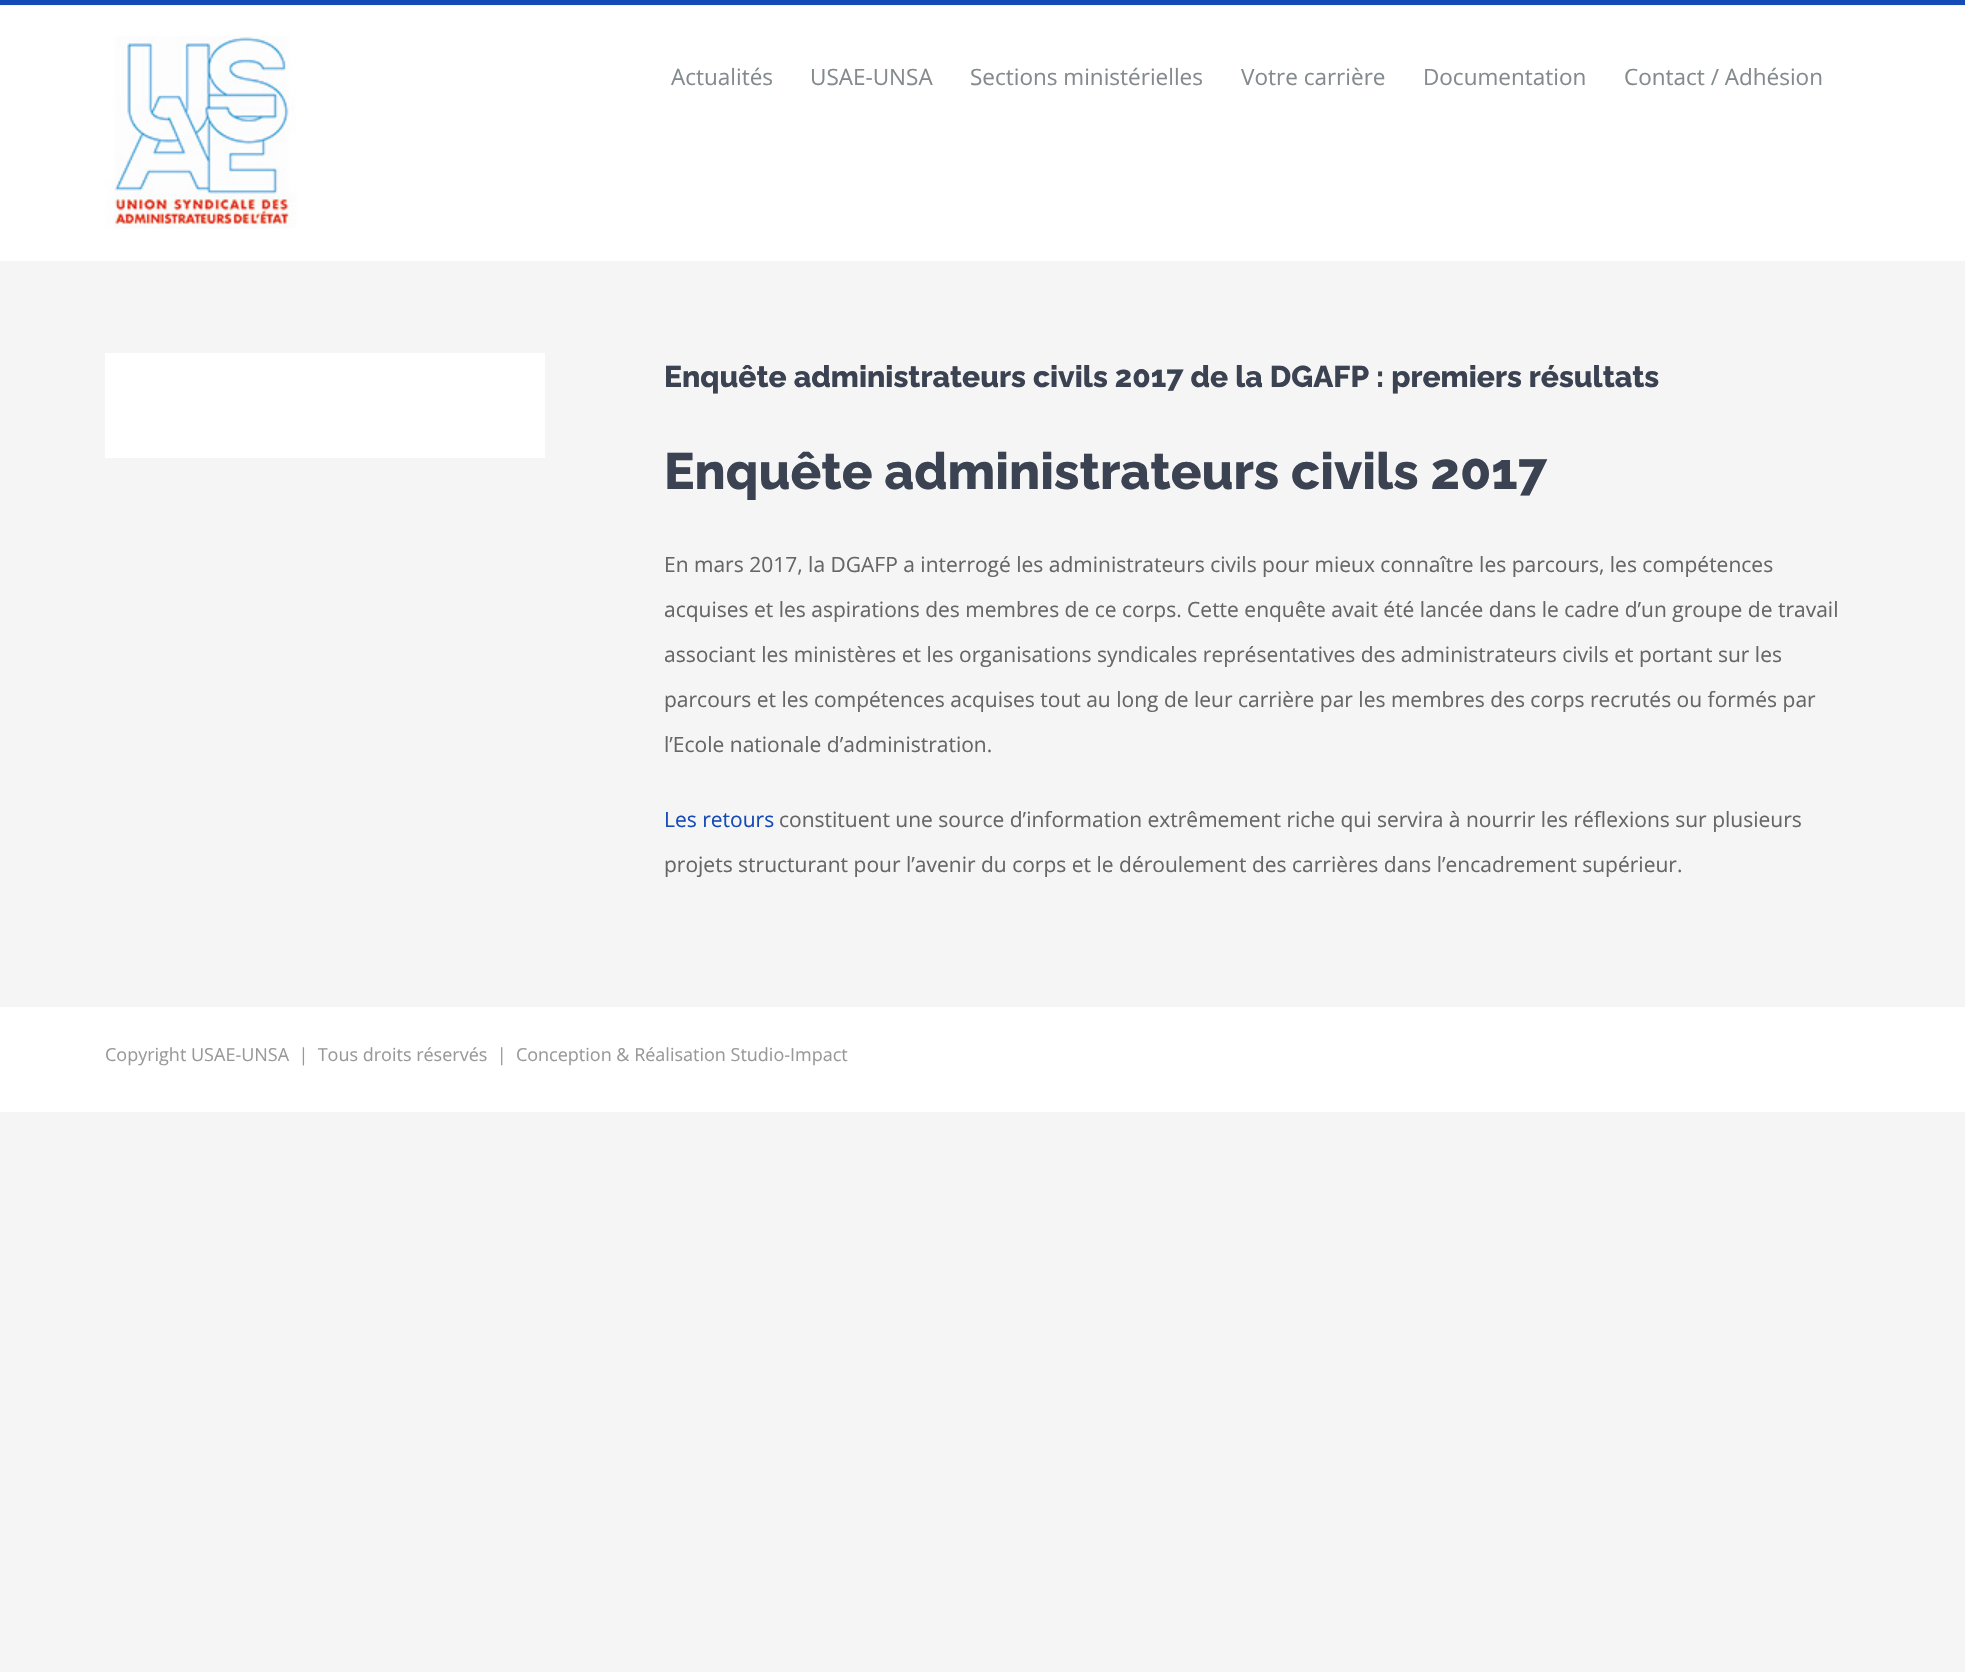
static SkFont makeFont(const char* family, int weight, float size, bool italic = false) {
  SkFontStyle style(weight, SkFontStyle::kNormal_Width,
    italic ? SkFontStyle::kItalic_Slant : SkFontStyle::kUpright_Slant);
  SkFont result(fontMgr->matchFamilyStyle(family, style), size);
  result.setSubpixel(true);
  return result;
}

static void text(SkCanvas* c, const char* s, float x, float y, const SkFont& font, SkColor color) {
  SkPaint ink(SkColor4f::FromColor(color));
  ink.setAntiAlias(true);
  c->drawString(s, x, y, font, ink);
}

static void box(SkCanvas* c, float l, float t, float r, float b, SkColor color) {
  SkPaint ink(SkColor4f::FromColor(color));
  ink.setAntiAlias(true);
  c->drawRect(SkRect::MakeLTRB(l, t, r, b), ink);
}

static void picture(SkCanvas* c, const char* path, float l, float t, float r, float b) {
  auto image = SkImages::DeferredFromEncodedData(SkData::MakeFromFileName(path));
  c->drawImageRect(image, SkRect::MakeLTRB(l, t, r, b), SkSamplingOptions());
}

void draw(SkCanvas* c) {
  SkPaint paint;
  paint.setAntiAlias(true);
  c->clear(0xfff5f5f5);
  box(c, 0, 0, 1965, 5, 0xff144bb7);
  box(c, 0, 6, 1965, 261, 0xffffffff);
  picture(c, "img_01.png", 105, 36, 297, 229);
  SkFont face1 = makeFont("Open Sans", 400, 22.5f);
  text(c, "Actualités", 671, 85, face1, 0xff848b8e);
  text(c, "USAE-UNSA", 810, 85, face1, 0xff848b8e);
  text(c, "Sections ministérielles", 970, 85, face1, 0xff848b8e);
  text(c, "Votre carrière", 1241, 85, face1, 0xff848b8e);
  text(c, "Documentation", 1423, 85, face1, 0xff848b8e);
  text(c, "Contact / Adhésion", 1624, 85, face1, 0xff848b8e);
  box(c, 105, 353, 545, 458, 0xffffffff);
  SkFont face2 = makeFont("Raleway", 100, 30);
  text(c, "Enquête administrateurs civils 2017 de la DGAFP : premiers résultats", 664, 387, face2, 0xff3b4251);
  SkFont face3 = makeFont("Raleway", 100, 51);
  text(c, "Enquête administrateurs civils 2017", 664, 489, face3, 0xff3b4251);
  SkFont face4 = makeFont("Open Sans", 400, 21);
  text(c, "En mars 2017, la DGAFP a interrogé les administrateurs civils pour mieux connaître les parcours, les compétences", 664, 572, face4, 0xff666666);
  text(c, "acquises et les aspirations des membres de ce corps. Cette enquête avait été lancée dans le cadre d’un groupe de travail", 664, 617, face4, 0xff666666);
  text(c, "associant les ministères et les organisations syndicales représentatives des administrateurs civils et portant sur les", 664, 662, face4, 0xff666666);
  text(c, "parcours et les compétences acquises tout au long de leur carrière par les membres des corps recrutés ou formés par", 664, 707, face4, 0xff666666);
  text(c, "l’Ecole nationale d’administration.", 664, 752, face4, 0xff666666);
  text(c, "Les retours", 664, 827, face4, 0xff144bb7);
  text(c, "constituent une source d’information extrêmement riche qui servira à nourrir les réflexions sur plusieurs", 779, 827, face4, 0xff666666);
  text(c, "projets structurant pour l’avenir du corps et le déroulement des carrières dans l’encadrement supérieur.", 664, 872, face4, 0xff666666);
  box(c, 0, 1007, 1965, 1112, 0xffffffff);
  SkFont face5 = makeFont("Open Sans", 400, 18);
  text(c, "Copyright USAE-UNSA  |  Tous droits réservés  |  Conception & Réalisation Studio-Impact", 105, 1061, face5, 0xff999999);
}
